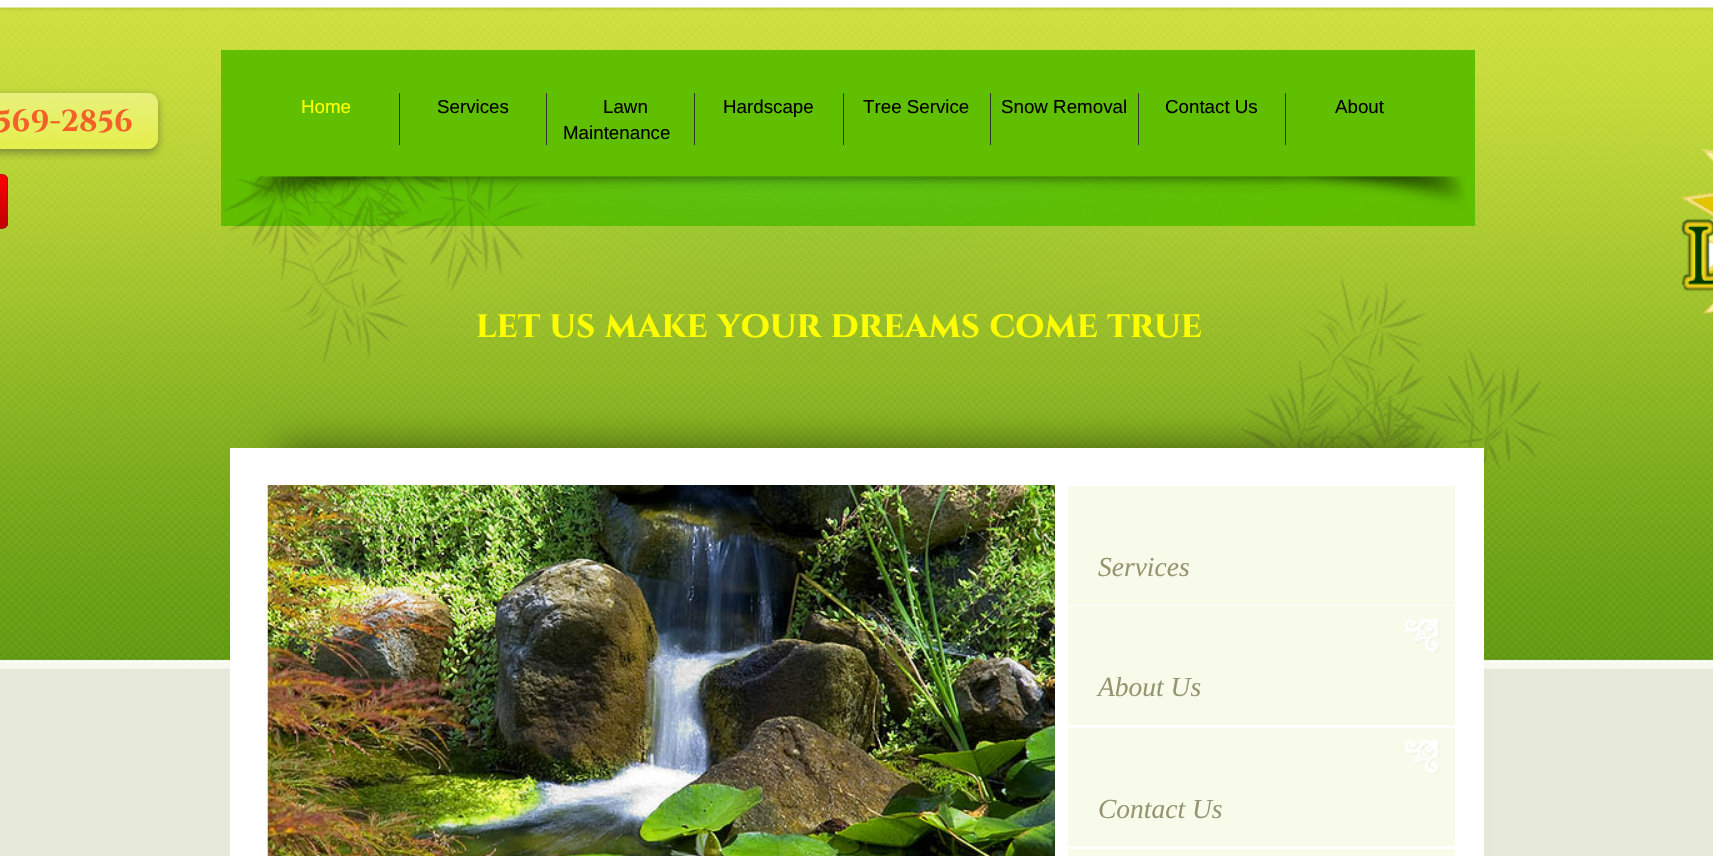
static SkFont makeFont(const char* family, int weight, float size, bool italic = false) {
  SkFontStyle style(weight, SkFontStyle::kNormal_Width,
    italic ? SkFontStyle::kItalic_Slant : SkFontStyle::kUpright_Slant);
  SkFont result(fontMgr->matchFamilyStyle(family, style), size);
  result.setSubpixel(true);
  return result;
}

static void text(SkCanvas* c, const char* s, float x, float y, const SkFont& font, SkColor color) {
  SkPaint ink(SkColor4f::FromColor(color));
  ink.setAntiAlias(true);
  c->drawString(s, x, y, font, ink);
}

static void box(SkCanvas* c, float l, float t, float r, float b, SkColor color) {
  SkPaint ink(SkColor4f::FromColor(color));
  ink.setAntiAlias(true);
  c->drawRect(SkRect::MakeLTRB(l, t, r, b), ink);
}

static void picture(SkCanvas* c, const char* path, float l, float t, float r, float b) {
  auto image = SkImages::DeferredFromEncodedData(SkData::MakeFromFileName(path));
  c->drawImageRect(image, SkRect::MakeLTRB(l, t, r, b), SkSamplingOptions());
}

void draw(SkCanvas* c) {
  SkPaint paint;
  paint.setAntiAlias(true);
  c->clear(0xffe7e9db);
  picture(c, "img_01.png", 0, 0, 1713, 669);
  box(c, 221, 50, 1475, 226, 0xff5fbf00);
  c->save();
  c->clipPath(SkPathBuilder(SkPathFillType::kEvenOdd).moveTo(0, 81).lineTo(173, 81).lineTo(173, 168).lineTo(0, 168).close().moveTo(-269, 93).lineTo(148, 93).cubicTo(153.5f, 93, 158, 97.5f, 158, 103).lineTo(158, 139).cubicTo(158, 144.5f, 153.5f, 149, 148, 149).lineTo(-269, 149).cubicTo(-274.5f, 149, -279, 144.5f, -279, 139).lineTo(-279, 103).cubicTo(-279, 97.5f, -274.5f, 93, -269, 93).close().detach(), true);
  paint.setColor(0x73323232);
  paint.setMaskFilter(SkMaskFilter::MakeBlur(kNormal_SkBlurStyle, 4.5f));
  c->drawRoundRect(SkRect::MakeLTRB(-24, 96, 158, 153), 10, 10, paint);
  paint.setMaskFilter(nullptr);
  c->restore();
  {
    const SkColor colors[] = {0x99ffffaa, 0x99ffff56};
    const float stops[] = {0, 1};
    const SkPoint ends[] = {{-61, 92}, {-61, 149}};
    paint.setShader(SkGradientShader::MakeLinear(ends, colors, stops, 2, SkTileMode::kClamp));
    paint.setAlpha(255);
  }
  c->drawPath(SkPathBuilder().moveTo(0, 93).lineTo(148, 93).cubicTo(153.5f, 93, 158, 97.5f, 158, 103).lineTo(158, 139).cubicTo(158, 144.5f, 153.5f, 149, 148, 149).lineTo(0, 149).close().detach(), paint);
  SkFont face1 = makeFont("Cinzel", 700, 30);
  text(c, "569-2856", -5, 131, face1, 0xfff56028);
  box(c, 399, 93, 400, 145, 0xff353535);
  SkFont face2 = makeFont("Liberation Sans", 400, 18.75f);
  text(c, "Home", 301, 113, face2, 0xffffff00);
  box(c, 546, 93, 547, 145, 0xff353535);
  text(c, "Services", 437, 113, face2, 0xff000000);
  box(c, 694, 93, 695, 145, 0xff353535);
  text(c, "Lawn", 603, 113, face2, 0xff000000);
  text(c, "Maintenance", 563, 139, face2, 0xff000000);
  box(c, 843, 93, 844, 145, 0xff353535);
  text(c, "Hardscape", 723, 113, face2, 0xff000000);
  box(c, 990, 93, 991, 145, 0xff353535);
  text(c, "Tree Service", 863, 113, face2, 0xff000000);
  box(c, 1138, 93, 1139, 145, 0xff353535);
  text(c, "Snow Removal", 1001, 113, face2, 0xff000000);
  box(c, 1285, 93, 1286, 145, 0xff353535);
  text(c, "Contact Us", 1165, 113, face2, 0xff000000);
  text(c, "About", 1335, 113, face2, 0xff000000);
  c->save();
  c->clipPath(SkPathBuilder().moveTo(-210, 174).lineTo(2, 174).cubicTo(5.5f, 174, 8, 176.5f, 8, 180).lineTo(8, 223).cubicTo(8, 226.5f, 5.5f, 229, 2, 229).lineTo(-210, 229).cubicTo(-213.5f, 229, -216, 226.5f, -216, 223).lineTo(-216, 180).cubicTo(-216, 176.5f, -213.5f, 174, -210, 174).close().detach(), true);
  {
    const SkColor colors[] = {0xffff0000, 0xffc00000};
    const float stops[] = {0, 1};
    const SkPoint ends[] = {{-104, 175}, {-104, 228}};
    paint.setShader(SkGradientShader::MakeLinear(ends, colors, stops, 2, SkTileMode::kClamp));
    paint.setAlpha(255);
  }
  c->drawRect(SkRect::MakeLTRB(0, 175, 8, 228), paint);
  c->restore();
  paint.setStyle(SkPaint::kStroke_Style);
  paint.setStrokeWidth(1);
  paint.setShader(nullptr);
  paint.setColor(0xffa61212);
  c->drawRoundRect(SkRect::MakeLTRB(-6.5f, 174.5f, 7.5f, 228.5f), 5.5f, 5.5f, paint);
  picture(c, "img_02.png", 223, 176, 1466, 364);
  picture(c, "img_03.png", 1681, 148, 1713, 314);
  SkFont face3 = makeFont("Cinzel", 700, 37.5f);
  text(c, "let us make your dreams come true", 476, 337, face3, 0xffffff00);
  paint.setStyle(SkPaint::kFill_Style);
  paint.setColor(0x80000000);
  paint.setMaskFilter(SkMaskFilter::MakeBlur(kNormal_SkBlurStyle, 19));
  c->drawRect(SkRect::MakeLTRB(280, 448, 1434, 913), paint);
  paint.setMaskFilter(nullptr);
  box(c, 230, 448, 1484, 856, 0xffffffff);
  picture(c, "img_04.png", 1241, 276, 1562, 507);
  picture(c, "img_05.png", 267, 485, 1055, 856);
  box(c, 1068, 486, 1455, 605, 0xfff8fbe9);
  SkFont face4 = makeFont("Liberation Serif", 400, 27.5f, true);
  text(c, "Services", 1098, 576, face4, 0xff959571);
  box(c, 1068, 606, 1455, 725, 0xfff8fbe9);
  picture(c, "img_06.png", 1404, 617, 1440, 653);
  text(c, "About Us", 1098, 696, face4, 0xff959571);
  box(c, 1068, 728, 1455, 846, 0xfff8fbe9);
  picture(c, "img_07.png", 1404, 739, 1440, 775);
  text(c, "Contact Us", 1098, 818, face4, 0xff959571);
  box(c, 1068, 849, 1455, 856, 0xfff8fbe9);
}
